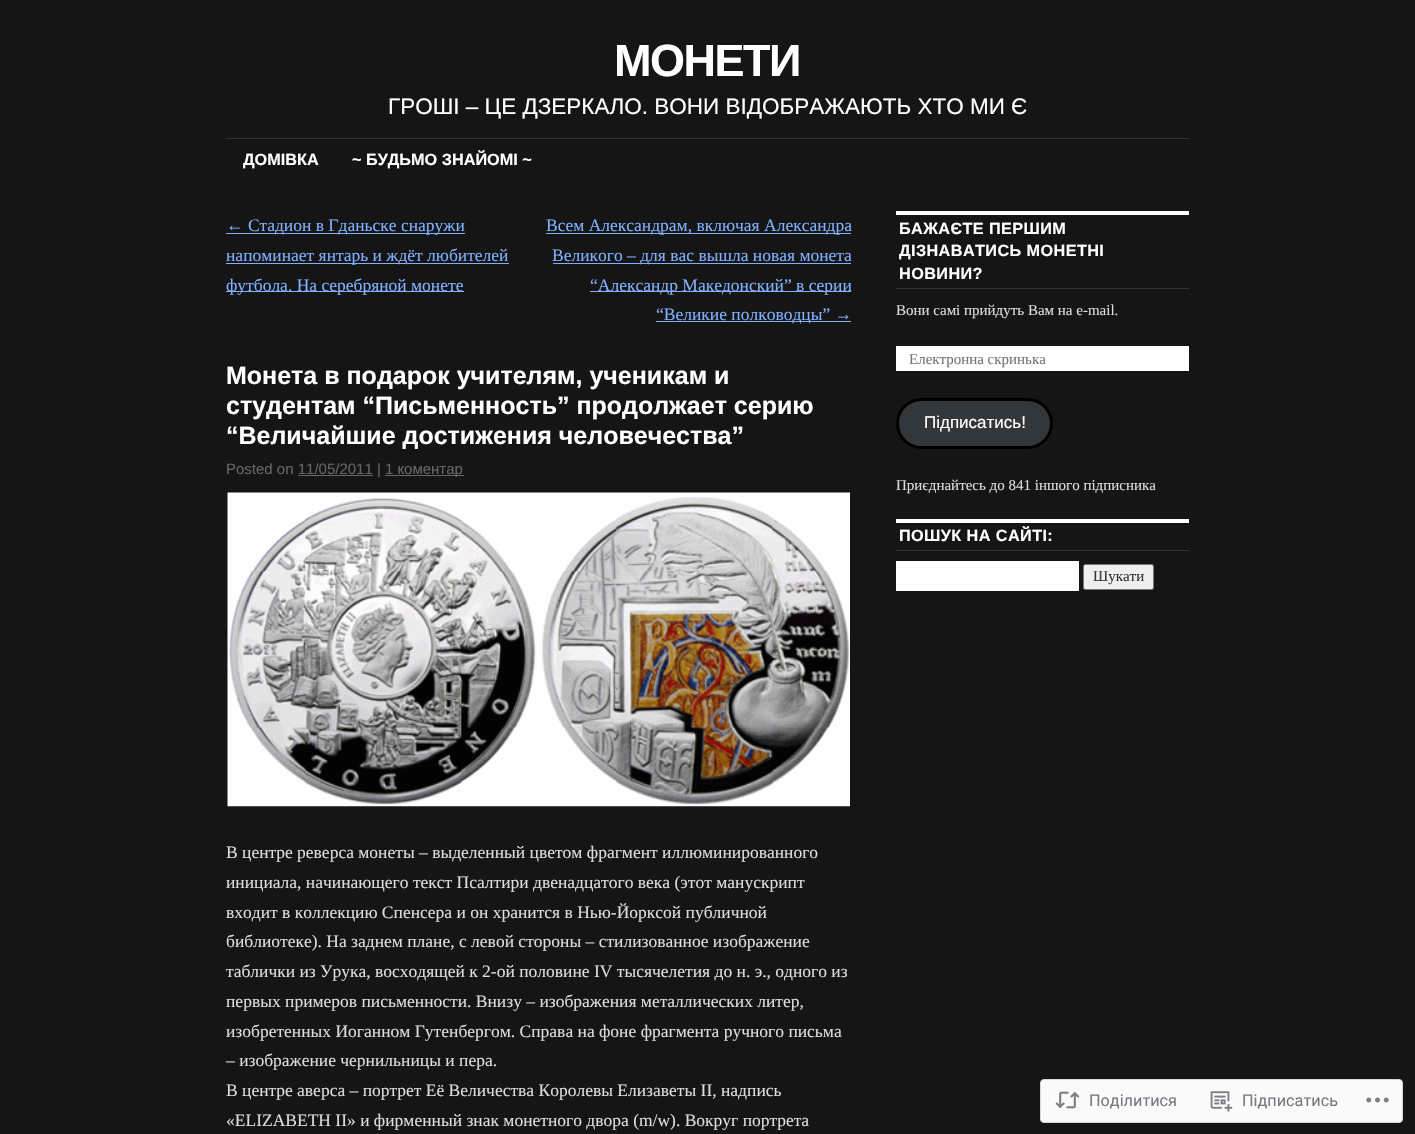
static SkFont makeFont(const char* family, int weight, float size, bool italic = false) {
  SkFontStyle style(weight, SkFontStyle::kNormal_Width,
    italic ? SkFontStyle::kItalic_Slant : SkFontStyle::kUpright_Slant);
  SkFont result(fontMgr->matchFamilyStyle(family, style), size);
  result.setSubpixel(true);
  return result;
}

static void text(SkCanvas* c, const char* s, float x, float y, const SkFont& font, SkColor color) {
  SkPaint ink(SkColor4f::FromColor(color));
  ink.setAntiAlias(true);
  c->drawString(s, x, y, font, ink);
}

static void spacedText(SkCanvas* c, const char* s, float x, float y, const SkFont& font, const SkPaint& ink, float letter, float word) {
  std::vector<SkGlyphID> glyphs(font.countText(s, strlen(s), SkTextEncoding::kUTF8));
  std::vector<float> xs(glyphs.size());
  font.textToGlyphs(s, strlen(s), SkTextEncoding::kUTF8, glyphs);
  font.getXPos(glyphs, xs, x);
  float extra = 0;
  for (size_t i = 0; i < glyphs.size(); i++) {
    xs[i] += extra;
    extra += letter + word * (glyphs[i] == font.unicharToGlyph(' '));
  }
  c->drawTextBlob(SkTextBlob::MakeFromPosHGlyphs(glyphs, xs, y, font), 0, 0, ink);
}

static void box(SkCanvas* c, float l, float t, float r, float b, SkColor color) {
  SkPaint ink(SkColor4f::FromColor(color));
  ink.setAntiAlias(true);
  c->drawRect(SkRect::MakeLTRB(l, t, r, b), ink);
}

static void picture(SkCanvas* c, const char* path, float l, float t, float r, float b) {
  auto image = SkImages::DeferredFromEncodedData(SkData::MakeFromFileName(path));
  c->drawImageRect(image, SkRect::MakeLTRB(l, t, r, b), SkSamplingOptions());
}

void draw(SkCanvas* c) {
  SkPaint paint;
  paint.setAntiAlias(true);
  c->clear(0xff151515);
  SkFont face1 = makeFont("Liberation Sans", 700, 45);
  paint.setColor(0xffffffff);
  spacedText(c, "МОНЕТИ", 614, 76, face1, paint, -1.5f, 0);
  SkFont face2 = makeFont("Liberation Sans", 400, 22.5f);
  text(c, "ГРОШІ – ЦЕ ДЗЕРКАЛО. ВОНИ ВІДОБРАЖАЮТЬ ХТО МИ Є", 388, 114, face2, 0xffffffff);
  box(c, 226, 138, 1189, 139, 0xff333333);
  SkFont face3 = makeFont("Liberation Sans", 700, 16.25f);
  text(c, "ДОМІВКА", 243, 165, face3, 0xffffffff);
  text(c, "~ БУДЬМО ЗНАЙОМІ ~", 352, 165, face3, 0xffffffff);
  box(c, 226, 233, 465, 234, 0xff80b0ff);
  SkFont face4 = makeFont("Liberation Serif", 400, 17.5f);
  text(c, "← Стадион в Гданьске снаружи", 226, 231, face4, 0xff80b0ff);
  box(c, 226, 263, 509, 264, 0xff80b0ff);
  text(c, "напоминает янтарь и ждёт любителей", 226, 261, face4, 0xff80b0ff);
  box(c, 226, 291, 464, 292, 0xff80b0ff);
  text(c, "футбола. На серебряной монете", 226, 291, face4, 0xff80b0ff);
  box(c, 546, 233, 851, 234, 0xff80b0ff);
  text(c, "Всем Александрам, включая Александра", 546, 231, face4, 0xff80b0ff);
  box(c, 553, 263, 851, 264, 0xff80b0ff);
  text(c, "Великого – для вас вышла новая монета", 552, 261, face4, 0xff80b0ff);
  box(c, 590, 291, 851, 292, 0xff80b0ff);
  text(c, "“Александр Македонский” в серии", 590, 291, face4, 0xff80b0ff);
  box(c, 656, 321, 851, 322, 0xff80b0ff);
  text(c, "“Великие полководцы” →", 656, 320, face4, 0xff80b0ff);
  SkFont face5 = makeFont("Liberation Sans", 700, 25);
  text(c, "Монета в подарок учителям, ученикам и", 226, 384, face5, 0xffffffff);
  text(c, "студентам “Письменность” продолжает серию", 226, 414, face5, 0xffffffff);
  text(c, "“Величайшие достижения человечества”", 226, 444, face5, 0xffffffff);
  SkFont face6 = makeFont("Liberation Sans", 400, 15);
  text(c, "Posted on 11/05/2011 |", 226, 474, face6, 0xff666666);
  box(c, 385, 475, 464, 476, 0xff666666);
  text(c, "1 коментар", 385, 474, face6, 0xff666666);
  box(c, 298, 475, 373, 476, 0xff666666);
  picture(c, "img_01.png", 227, 492, 850, 807);
  text(c, "В центре реверса монеты – выделенный цветом фрагмент иллюминированного", 226, 858, face4, 0xffdddddd);
  text(c, "инициала, начинающего текст Псалтири двенадцатого века (этот манускрипт", 226, 888, face4, 0xffdddddd);
  text(c, "входит в коллекцию Спенсера и он хранится в Нью-Йорксой публичной", 226, 918, face4, 0xffdddddd);
  text(c, "библиотеке). На заднем плане, с левой стороны – стилизованное изображение", 226, 947, face4, 0xffdddddd);
  text(c, "таблички из Урука, восходящей к 2-ой половине IV тысячелетия до н. э., одного из", 226, 977, face4, 0xffdddddd);
  text(c, "первых примеров письменности. Внизу – изображения металлических литер,", 226, 1007, face4, 0xffdddddd);
  text(c, "изобретенных Иоганном Гутенбергом. Справа на фоне фрагмента ручного письма", 226, 1037, face4, 0xffdddddd);
  text(c, "– изображение чернильницы и пера.", 226, 1066, face4, 0xffdddddd);
  text(c, "В центре аверса – портрет Её Величества Королевы Елизаветы II, надпись", 226, 1096, face4, 0xffdddddd);
  text(c, "«ELIZABETH II» и фирменный знак монетного двора (m/w). Вокруг портрета", 226, 1126, face4, 0xffdddddd);
  box(c, 896, 211, 1189, 215, 0xffffffff);
  box(c, 896, 288, 1189, 289, 0xff333333);
  spacedText(c, "БАЖАЄТЕ ПЕРШИМ", 899, 234, face3, paint, 0.4f, 0);
  spacedText(c, "ДІЗНАВАТИСЬ МОНЕТНІ", 899, 256, face3, paint, 0.4f, 0);
  spacedText(c, "НОВИНИ?", 899, 279, face3, paint, 0.4f, 0);
  SkFont face7 = makeFont("Liberation Serif", 400, 15);
  text(c, "Вони самі прийдуть Вам на e-mail.", 896, 315, face7, 0xffdddddd);
  box(c, 896, 346, 1189, 371, 0xffffffff);
  text(c, "Електронна скринька", 909, 364, face7, 0xff757575);
  paint.setColor(0xff32373c);
  c->drawRoundRect(SkRect::MakeLTRB(897.5f, 399.5f, 1051.5f, 447.5f), 24, 24, paint);
  paint.setStyle(SkPaint::kStroke_Style);
  paint.setStrokeWidth(3);
  paint.setColor(0xff000000);
  c->drawRoundRect(SkRect::MakeLTRB(897.5f, 399.5f, 1051.5f, 447.5f), 24, 24, paint);
  SkFont face8 = makeFont("Liberation Sans", 400, 17);
  text(c, "Підписатись!", 924, 428, face8, 0xffffffff);
  text(c, "Приєднайтесь до 841 іншого підписника", 896, 490, face7, 0xffdddddd);
  box(c, 896, 519, 1189, 523, 0xffffffff);
  box(c, 896, 550, 1189, 551, 0xff333333);
  paint.setStyle(SkPaint::kFill_Style);
  paint.setColor(0xffffffff);
  spacedText(c, "ПОШУК НА САЙТІ:", 899, 541, face3, paint, 0.4f, 0);
  box(c, 896, 561, 1079, 591, 0xffffffff);
  paint.setColor(0xffefefef);
  c->drawRoundRect(SkRect::MakeLTRB(1083.5f, 564.5f, 1153.5f, 589.5f), 2, 2, paint);
  paint.setStyle(SkPaint::kStroke_Style);
  paint.setStrokeWidth(1);
  paint.setColor(0xff767676);
  c->drawRoundRect(SkRect::MakeLTRB(1083.5f, 564.5f, 1153.5f, 589.5f), 2, 2, paint);
  text(c, "Шукати", 1093, 581, face7, 0xff333333);
  paint.setStyle(SkPaint::kFill_Style);
  paint.setColor(0xfffafafa);
  c->drawRoundRect(SkRect::MakeLTRB(1040.5f, 1079.5f, 1402.5f, 1122.5f), 3.5f, 3.5f, paint);
  paint.setStyle(SkPaint::kStroke_Style);
  paint.setColor(0xffd8d8da);
  c->drawRoundRect(SkRect::MakeLTRB(1040.5f, 1079.5f, 1402.5f, 1122.5f), 3.5f, 3.5f, paint);
  picture(c, "img_02.png", 1055, 1091, 1080, 1109);
  SkFont face9 = makeFont("Roboto", 400, 16.25f);
  text(c, "Поділитися", 1089, 1106, face9, 0xff767a80);
  picture(c, "img_03.png", 1210, 1091, 1233, 1112);
  text(c, "Підписатись", 1242, 1106, face9, 0xff767a80);
  picture(c, "img_04.png", 1366, 1097, 1389, 1103);
}
